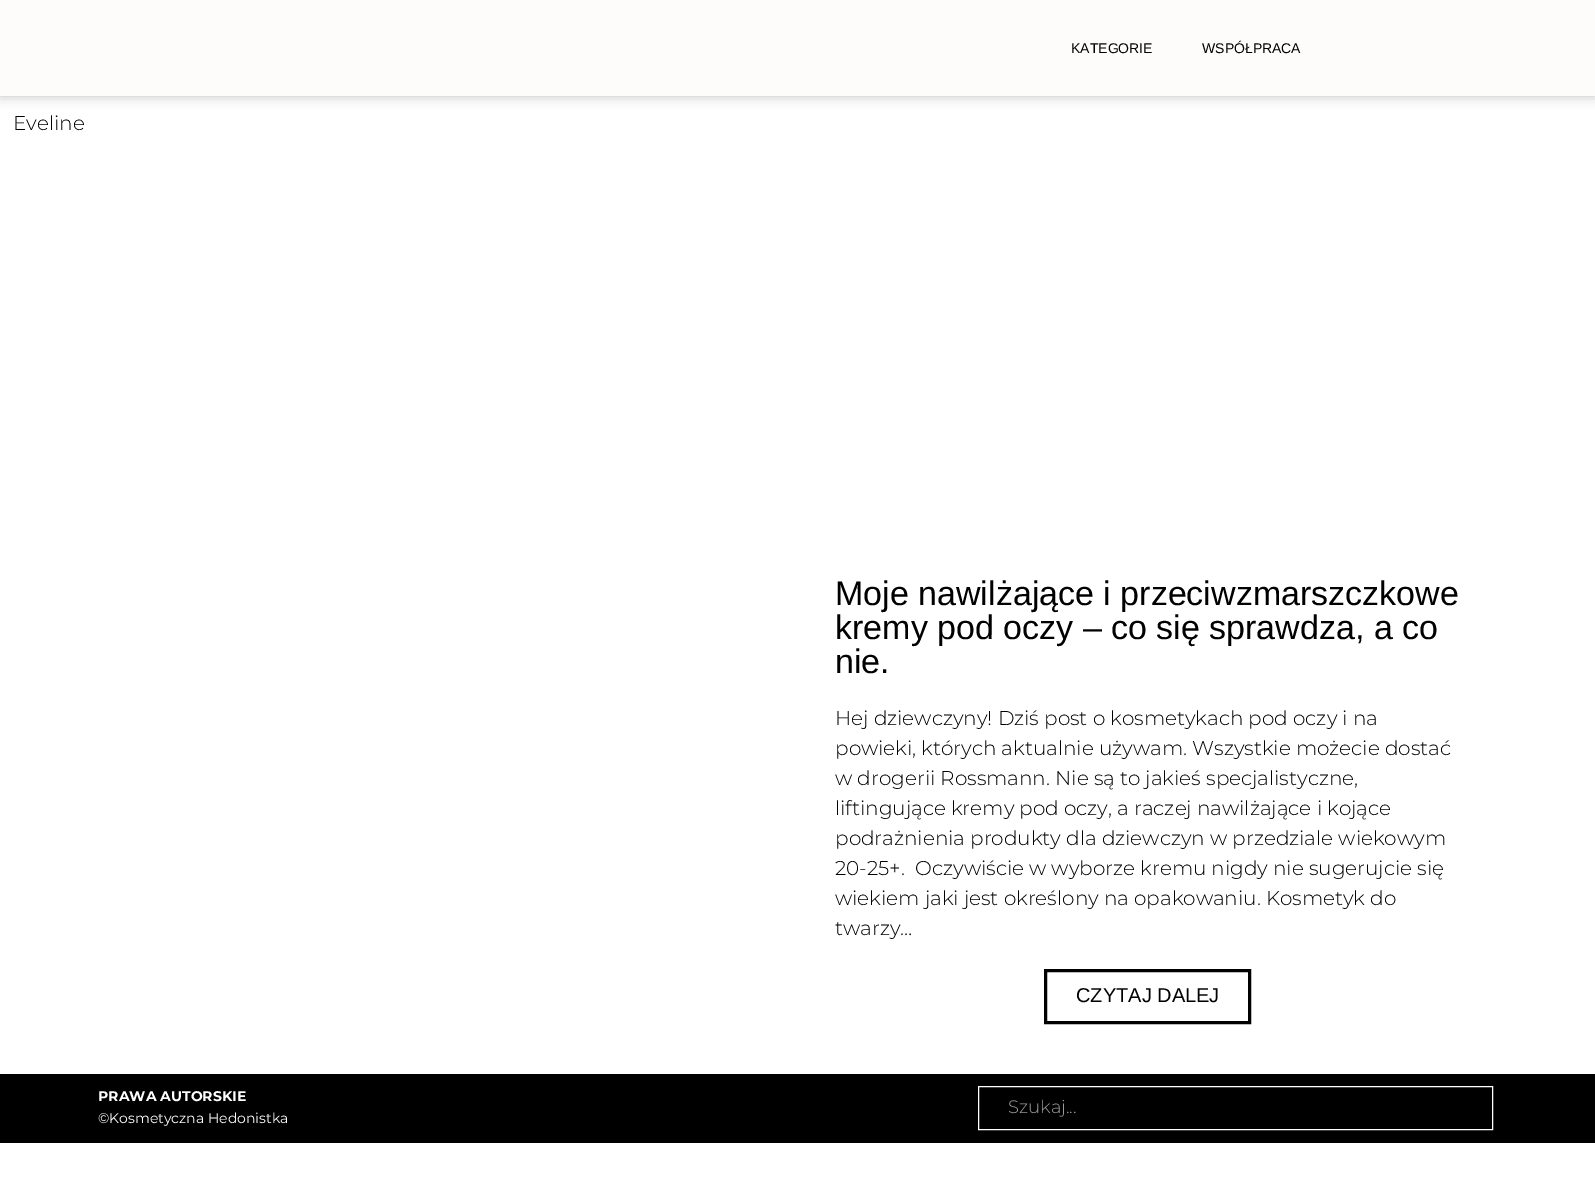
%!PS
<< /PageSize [1595 1191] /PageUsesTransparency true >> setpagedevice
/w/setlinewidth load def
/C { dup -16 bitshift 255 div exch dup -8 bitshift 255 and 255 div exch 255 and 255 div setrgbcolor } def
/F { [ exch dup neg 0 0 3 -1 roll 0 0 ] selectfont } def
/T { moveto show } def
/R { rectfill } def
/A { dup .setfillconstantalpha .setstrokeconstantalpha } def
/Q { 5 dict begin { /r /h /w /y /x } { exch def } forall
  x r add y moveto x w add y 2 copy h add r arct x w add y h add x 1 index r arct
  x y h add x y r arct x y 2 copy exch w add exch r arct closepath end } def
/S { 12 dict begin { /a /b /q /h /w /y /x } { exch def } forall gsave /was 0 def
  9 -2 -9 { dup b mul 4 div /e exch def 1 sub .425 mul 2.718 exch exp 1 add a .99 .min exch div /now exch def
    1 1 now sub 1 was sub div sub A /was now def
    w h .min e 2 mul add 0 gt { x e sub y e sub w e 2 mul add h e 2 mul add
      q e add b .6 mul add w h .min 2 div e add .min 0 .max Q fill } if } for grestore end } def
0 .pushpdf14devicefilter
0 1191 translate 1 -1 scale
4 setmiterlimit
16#FFFFFF C
0 0 1595 1191 R
16#000000 C
0 0 1595 96 0 6 .25 S
16#FEFBFB C
0 0 1595 96 R
/LiberationSans-Regular 14 F
16#000000 C
(KATEGORIE) 1071 53 T
(WSPÓŁPRACA) 1202 53 T
/Montserrat-Light 20 F
(Eveline) 13 130 T
/LiberationSans-Regular 34 F
(Moje nawilżające i przeciwzmarszczkowe) 835 605 T
(kremy pod oczy – co się sprawdza, a co) 835 639 T
(nie.) 835 673 T
/Montserrat-Light 20 F
(Hej dziewczyny! Dziś post o kosmetykach pod oczy i na) 835 725 T
(powieki, których aktualnie używam. Wszystkie możecie dostać) 835 755 T
(w drogerii Rossmann. Nie są to jakieś specjalistyczne,) 835 785 T
(liftingujące kremy pod oczy, a raczej nawilżające i kojące) 835 815 T
(podrażnienia produkty dla dziewczyn w przedziale wiekowym) 835 845 T
(20-25+.  Oczywiście w wyborze kremu nigdy nie sugerujcie się) 835 875 T
(wiekiem jaki jest określony na opakowaniu. Kosmetyk do) 835 905 T
(twarzy…) 835 935 T
3 w
1045.5 970.5 204 52 rectstroke
/LiberationSans-Regular 20 F
(CZYTAJ DALEJ) 1076 1002 T
0 1074 1595 69 R
/Montserrat-Bold 14 F
16#FFFFFF C
(PRAWA AUTORSKIE) 98 1101 T
/Montserrat-Regular 14 F
(©Kosmetyczna Hedonistka) 98 1123 T
1 w
978.5 1086.5 514 43 rectstroke
/Montserrat-Light 18 F
16#999999 C
(Szukaj...) 1008 1113 T
.poppdf14devicefilter showpage
